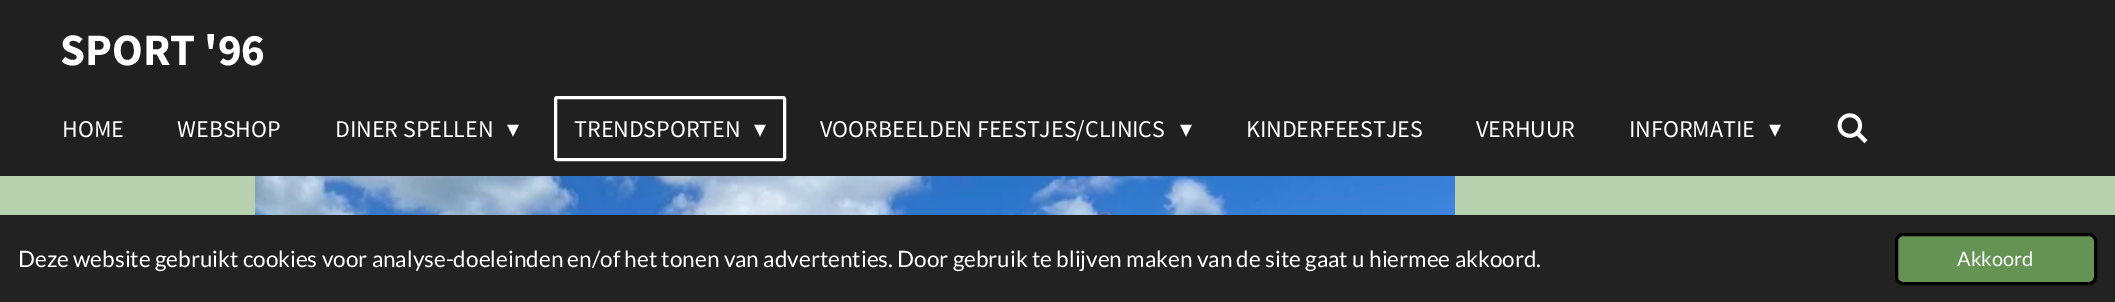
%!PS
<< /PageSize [2115 302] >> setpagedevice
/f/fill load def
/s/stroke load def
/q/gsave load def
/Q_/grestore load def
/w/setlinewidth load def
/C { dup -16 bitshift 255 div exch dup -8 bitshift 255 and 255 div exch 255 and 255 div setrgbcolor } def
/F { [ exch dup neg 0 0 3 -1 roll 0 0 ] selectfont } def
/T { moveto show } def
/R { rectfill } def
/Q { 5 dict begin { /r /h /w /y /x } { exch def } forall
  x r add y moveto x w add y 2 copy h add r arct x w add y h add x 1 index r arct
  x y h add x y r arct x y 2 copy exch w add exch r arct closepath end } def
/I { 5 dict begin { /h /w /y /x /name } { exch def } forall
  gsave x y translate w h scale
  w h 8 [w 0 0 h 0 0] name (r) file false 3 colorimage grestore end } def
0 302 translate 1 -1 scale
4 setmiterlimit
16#B8D1AE C
0 0 2115 302 R
16#202020 C
0 0 2115 176 R
/SourceSansPro-Bold 45 F
16#FFFFFF C
(SPORT '96) 60 65 T
/SourceSansPro-Regular 24 F
(HOME) 62 137 T
(WEBSHOP) 177 137 T
(DINER SPELLEN) 335 137 T
/DejaVuSans-Regular 24 F
(▾) 507 137 T
3 w
555.5 97.5 229 62 1.5 Q s
/SourceSansPro-Regular 24 F
(TRENDSPORTEN) 574 137 T
/DejaVuSans-Regular 24 F
(▾) 754 137 T
/SourceSansPro-Regular 24 F
(VOORBEELDEN FEESTJES/CLINICS) 820 137 T
/DejaVuSans-Regular 24 F
(▾) 1180 137 T
/SourceSansPro-Regular 24 F
(KINDERFEESTJES) 1246 137 T
(VERHUUR) 1476 137 T
(INFORMATIE) 1629 137 T
/DejaVuSans-Regular 24 F
(▾) 1769 137 T
(1.rgb) 1837 113 31 31 I
(2.rgb) 255 176 1200 39 I
16#222222 C
0 215 2115 87 R
/Lato-Regular 22.5 F
16#FFFFFF C
(Deze website gebruikt cookies voor analyse-doeleinden en/of het tonen van advertenties. Door gebruik te blijven maken van de site gaat u hiermee akkoord.) 18 267 T
16#659353 C
1896.5 234.5 199 49 6.5 Q q f Q_
16#000000 C
s
/Lato-Regular 20 F
16#FFFFFF C
(Akkoord) 1957 266 T
showpage
